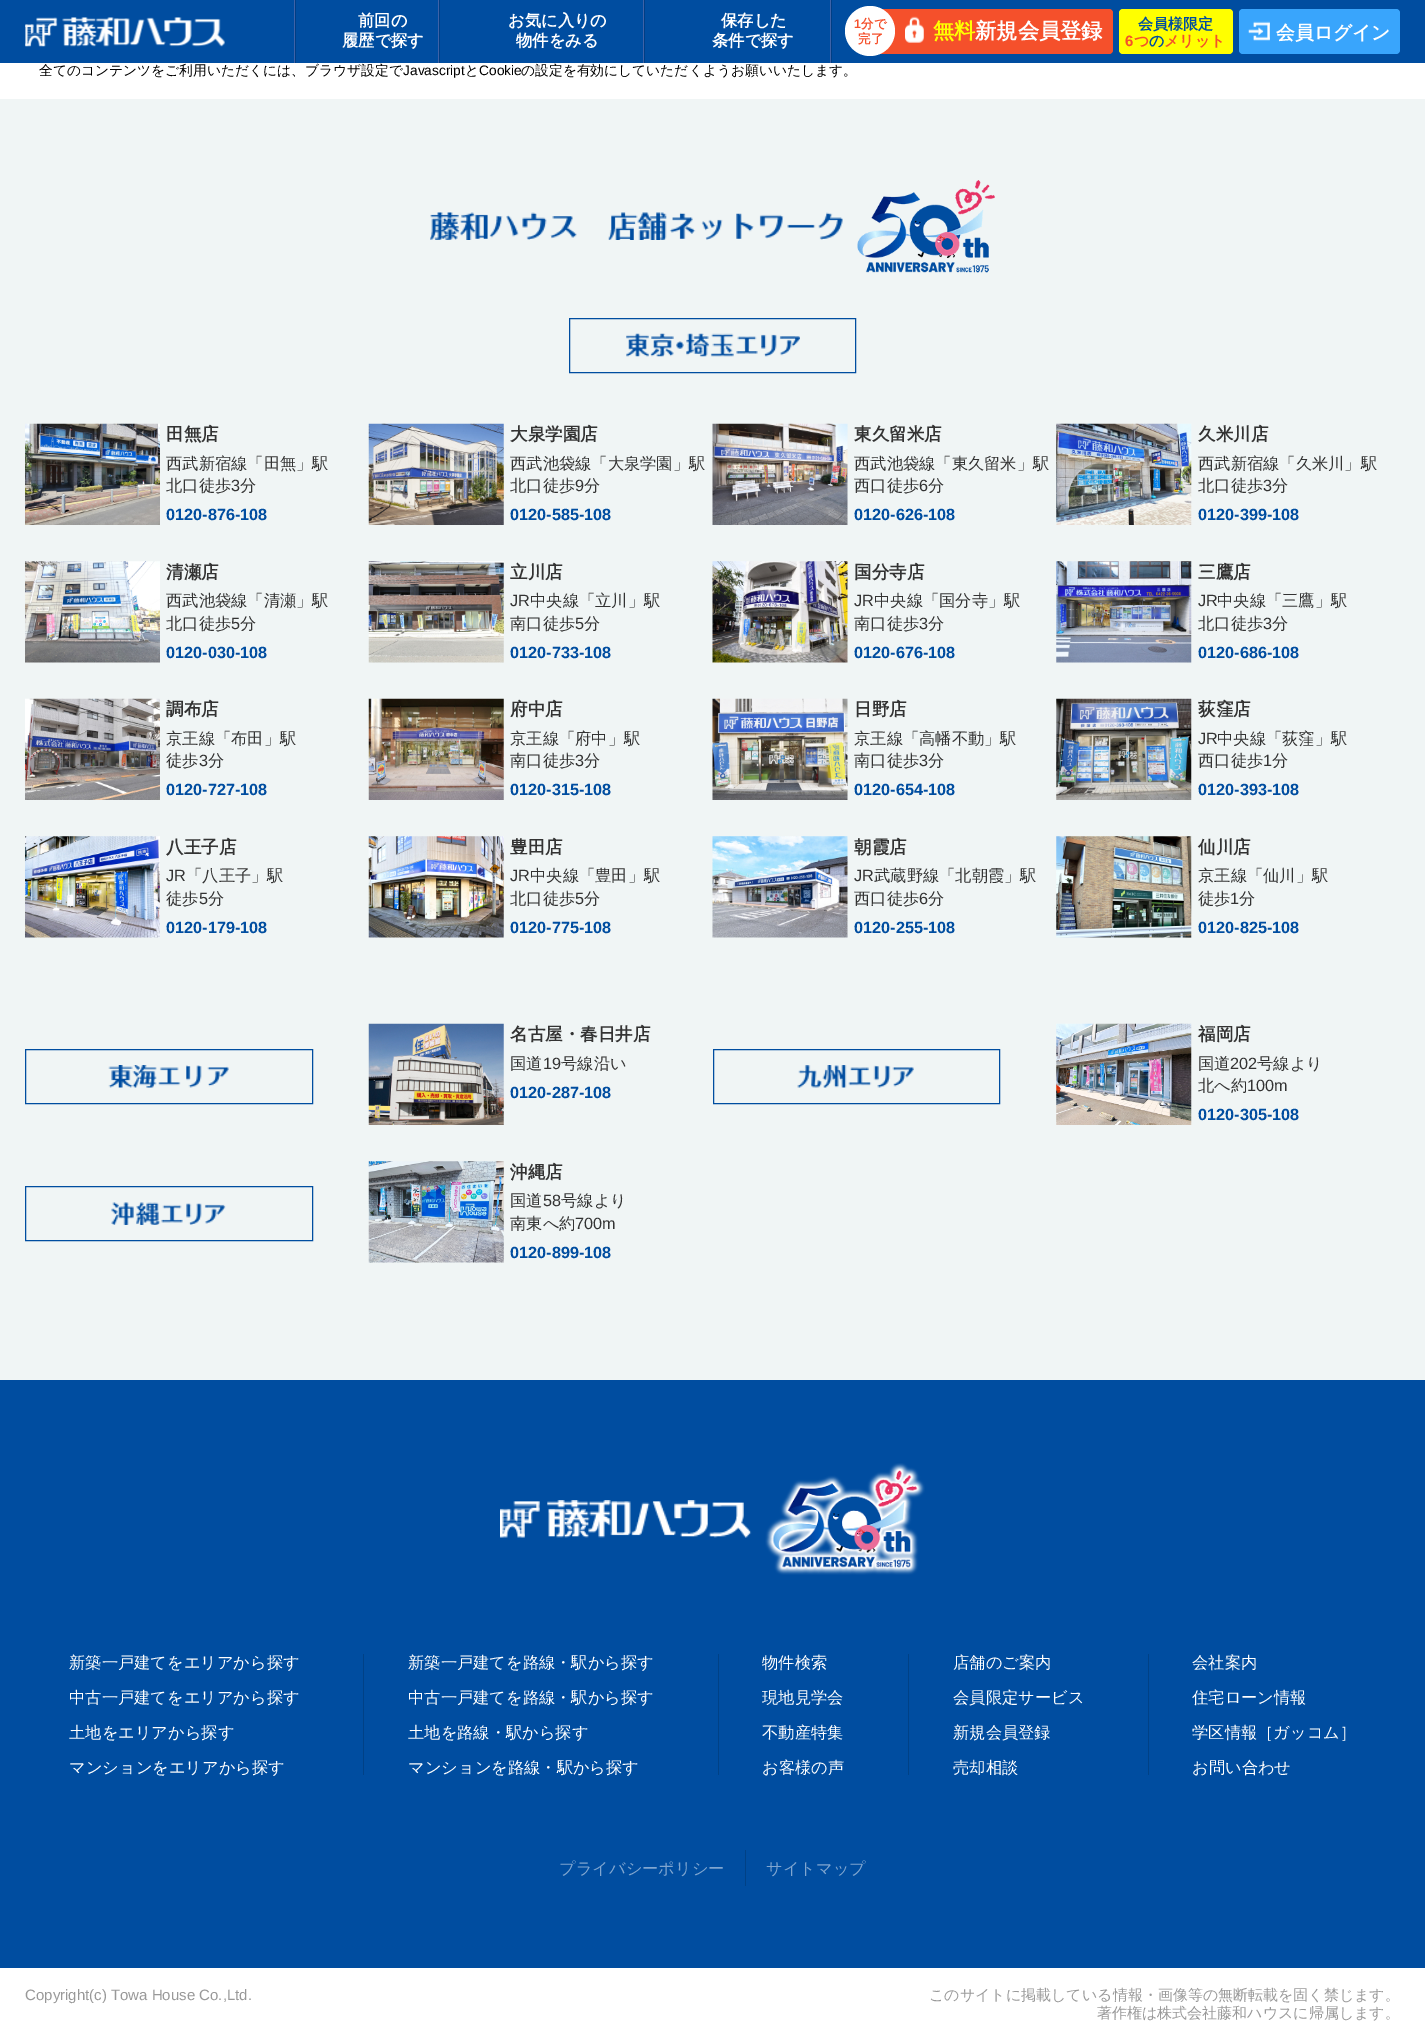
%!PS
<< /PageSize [1425 2040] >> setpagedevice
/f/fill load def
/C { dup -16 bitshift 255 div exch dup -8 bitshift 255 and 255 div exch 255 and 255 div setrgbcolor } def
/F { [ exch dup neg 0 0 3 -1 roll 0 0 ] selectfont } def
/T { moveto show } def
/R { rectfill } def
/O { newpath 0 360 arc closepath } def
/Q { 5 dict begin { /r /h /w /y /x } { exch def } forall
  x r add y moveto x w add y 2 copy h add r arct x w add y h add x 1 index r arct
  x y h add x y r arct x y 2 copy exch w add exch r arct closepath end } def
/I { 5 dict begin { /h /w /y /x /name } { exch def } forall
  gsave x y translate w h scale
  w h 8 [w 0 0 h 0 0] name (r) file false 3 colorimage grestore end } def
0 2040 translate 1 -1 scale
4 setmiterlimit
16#FFFFFF C
0 0 1425 2040 R
16#004DA0 C
0 0 1425 63 R
(1.rgb) 25 17 200 30 I
16#3E63A8 C
294 0 1 63 R
16#003E85 C
295 0 1 63 R
/WenQuanYiZenHei-Bold 16.25 F
16#FFFFFF C
(前回の) 358 26 T
(履歴で探す) 342 46 T
16#3E63A8 C
438 0 1 63 R
16#003E85 C
439 0 1 63 R
16#FFFFFF C
(お気に入りの) 508 26 T
(物件をみる) 516 46 T
16#003E85 C
831 0 1 63 R
16#3E63A8 C
643 0 1 63 R
830 0 1 63 R
16#003E85 C
644 0 1 63 R
16#FFFFFF C
(保存した) 721 26 T
(条件で探す) 712 46 T
16#F5502B C
870 9 243 45 4 Q f
(2.rgb) 905 16 19 27 I
16#FFFFFF C
870 31 25 O f
/LiberationSans-Bold 12.5 F
16#F5502B C
(1) 854 28 T
/WenQuanYiZenHei-Bold 12.5 F
(分で) 861 28 T
(完了) 858 43 T
/WenQuanYiZenHei-Bold 21.25 F
16#FFFF00 C
(無料) 933 38 T
16#FFFFFF C
(新規会員登録) 975 38 T
16#FFFF00 C
1119 9 114 45 4 Q f
/WenQuanYiZenHei-Bold 15 F
16#004DA0 C
(会員様限定) 1138 29 T
/LiberationSans-Bold 15 F
16#F5502B C
(6) 1125 46 T
/WenQuanYiZenHei-Bold 15 F
(つ) 1134 46 T
16#004DA0 C
(の) 1149 46 T
16#F5502B C
(メリット) 1164 46 T
16#39A5FC C
1239 9 161 45 4 Q f
(3.rgb) 1248 21 22 20 I
/WenQuanYiZenHei-Bold 18.75 F
16#FFFFFF C
(会員ログイン) 1276 39 T
/WenQuanYiZenHei-Medium 13.75 F
16#000000 C
(全てのコンテンツをご利用いただくには、ブラウザ設定で) 39 75 T
/LiberationSans-Regular 13.75 F
(Javascript) 403 75 T
/WenQuanYiZenHei-Medium 13.75 F
(と) 465 75 T
/LiberationSans-Regular 13.75 F
(Cookie) 479 75 T
/WenQuanYiZenHei-Medium 13.75 F
(の設定を有効にしていただくようお願いいたします。) 521 75 T
16#F0F5F5 C
0 99 1425 1281 R
(4.rgb) 430 212 413 28 I
(5.rgb) 857 180 138 93 I
16#004DA0 C
569.5 318.5 286 54 rectstroke
(6.rgb) 626 333 174 24 I
/WenQuanYiZenHei-Bold 17.5 F
16#333333 C
(田無店) 166 440 T
(7.rgb) 25 423 135 102 I
/WenQuanYiZenHei-Medium 16.25 F
(西武新宿線「田無」駅) 166 469 T
(北口徒歩) 166 491 T
/LiberationSans-Regular 16.25 F
(3) 231 491 T
/WenQuanYiZenHei-Medium 16.25 F
(分) 240 491 T
/LiberationSans-Bold 16.25 F
16#004DA0 C
(0120-876-108) 166 520 T
/WenQuanYiZenHei-Bold 17.5 F
16#333333 C
(大泉学園店) 510 440 T
(8.rgb) 368 423 136 102 I
/WenQuanYiZenHei-Medium 16.25 F
(西武池袋線「大泉学園」駅) 510 469 T
(北口徒歩) 510 491 T
/LiberationSans-Regular 16.25 F
(9) 575 491 T
/WenQuanYiZenHei-Medium 16.25 F
(分) 584 491 T
/LiberationSans-Bold 16.25 F
16#004DA0 C
(0120-585-108) 510 520 T
/WenQuanYiZenHei-Bold 17.5 F
16#333333 C
(東久留米店) 854 440 T
(9.rgb) 712 423 136 102 I
/WenQuanYiZenHei-Medium 16.25 F
(西武池袋線「東久留米」駅) 854 469 T
(西口徒歩) 854 491 T
/LiberationSans-Regular 16.25 F
(6) 919 491 T
/WenQuanYiZenHei-Medium 16.25 F
(分) 928 491 T
/LiberationSans-Bold 16.25 F
16#004DA0 C
(0120-626-108) 854 520 T
/WenQuanYiZenHei-Bold 17.5 F
16#333333 C
(久米川店) 1198 440 T
(10.rgb) 1056 423 136 102 I
/WenQuanYiZenHei-Medium 16.25 F
(西武新宿線「久米川」駅) 1198 469 T
(北口徒歩) 1198 491 T
/LiberationSans-Regular 16.25 F
(3) 1263 491 T
/WenQuanYiZenHei-Medium 16.25 F
(分) 1272 491 T
/LiberationSans-Bold 16.25 F
16#004DA0 C
(0120-399-108) 1198 520 T
/WenQuanYiZenHei-Bold 17.5 F
16#333333 C
(清瀬店) 166 578 T
(11.rgb) 25 561 135 102 I
/WenQuanYiZenHei-Medium 16.25 F
(西武池袋線「清瀬」駅) 166 606 T
(北口徒歩) 166 629 T
/LiberationSans-Regular 16.25 F
(5) 231 629 T
/WenQuanYiZenHei-Medium 16.25 F
(分) 240 629 T
/LiberationSans-Bold 16.25 F
16#004DA0 C
(0120-030-108) 166 658 T
/WenQuanYiZenHei-Bold 17.5 F
16#333333 C
(立川店) 510 578 T
(12.rgb) 368 561 136 102 I
/LiberationSans-Regular 16.25 F
(JR) 510 606 T
/WenQuanYiZenHei-Medium 16.25 F
(中央線「立川」駅) 530 606 T
(南口徒歩) 510 629 T
/LiberationSans-Regular 16.25 F
(5) 575 629 T
/WenQuanYiZenHei-Medium 16.25 F
(分) 584 629 T
/LiberationSans-Bold 16.25 F
16#004DA0 C
(0120-733-108) 510 658 T
/WenQuanYiZenHei-Bold 17.5 F
16#333333 C
(国分寺店) 854 578 T
(13.rgb) 712 561 136 102 I
/LiberationSans-Regular 16.25 F
(JR) 854 606 T
/WenQuanYiZenHei-Medium 16.25 F
(中央線「国分寺」駅) 874 606 T
(南口徒歩) 854 629 T
/LiberationSans-Regular 16.25 F
(3) 919 629 T
/WenQuanYiZenHei-Medium 16.25 F
(分) 928 629 T
/LiberationSans-Bold 16.25 F
16#004DA0 C
(0120-676-108) 854 658 T
/WenQuanYiZenHei-Bold 17.5 F
16#333333 C
(三鷹店) 1198 578 T
(14.rgb) 1056 561 136 102 I
/LiberationSans-Regular 16.25 F
(JR) 1198 606 T
/WenQuanYiZenHei-Medium 16.25 F
(中央線「三鷹」駅) 1217 606 T
(北口徒歩) 1198 629 T
/LiberationSans-Regular 16.25 F
(3) 1263 629 T
/WenQuanYiZenHei-Medium 16.25 F
(分) 1272 629 T
/LiberationSans-Bold 16.25 F
16#004DA0 C
(0120-686-108) 1198 658 T
/WenQuanYiZenHei-Bold 17.5 F
16#333333 C
(調布店) 166 715 T
(15.rgb) 25 698 135 102 I
/WenQuanYiZenHei-Medium 16.25 F
(京王線「布田」駅) 166 744 T
(徒歩) 166 766 T
/LiberationSans-Regular 16.25 F
(3) 199 766 T
/WenQuanYiZenHei-Medium 16.25 F
(分) 208 766 T
/LiberationSans-Bold 16.25 F
16#004DA0 C
(0120-727-108) 166 795 T
/WenQuanYiZenHei-Bold 17.5 F
16#333333 C
(府中店) 510 715 T
(16.rgb) 368 698 136 102 I
/WenQuanYiZenHei-Medium 16.25 F
(京王線「府中」駅) 510 744 T
(南口徒歩) 510 766 T
/LiberationSans-Regular 16.25 F
(3) 575 766 T
/WenQuanYiZenHei-Medium 16.25 F
(分) 584 766 T
/LiberationSans-Bold 16.25 F
16#004DA0 C
(0120-315-108) 510 795 T
/WenQuanYiZenHei-Bold 17.5 F
16#333333 C
(日野店) 854 715 T
(17.rgb) 712 698 136 102 I
/WenQuanYiZenHei-Medium 16.25 F
(京王線「高幡不動」駅) 854 744 T
(南口徒歩) 854 766 T
/LiberationSans-Regular 16.25 F
(3) 919 766 T
/WenQuanYiZenHei-Medium 16.25 F
(分) 928 766 T
/LiberationSans-Bold 16.25 F
16#004DA0 C
(0120-654-108) 854 795 T
/WenQuanYiZenHei-Bold 17.5 F
16#333333 C
(荻窪店) 1198 715 T
(18.rgb) 1056 698 136 102 I
/LiberationSans-Regular 16.25 F
(JR) 1198 744 T
/WenQuanYiZenHei-Medium 16.25 F
(中央線「荻窪」駅) 1217 744 T
(西口徒歩) 1198 766 T
/LiberationSans-Regular 16.25 F
(1) 1263 766 T
/WenQuanYiZenHei-Medium 16.25 F
(分) 1272 766 T
/LiberationSans-Bold 16.25 F
16#004DA0 C
(0120-393-108) 1198 795 T
/WenQuanYiZenHei-Bold 17.5 F
16#333333 C
(八王子店) 166 853 T
(19.rgb) 25 836 135 102 I
/LiberationSans-Regular 16.25 F
(JR) 166 881 T
/WenQuanYiZenHei-Medium 16.25 F
(「八王子」駅) 186 881 T
(徒歩) 166 904 T
/LiberationSans-Regular 16.25 F
(5) 199 904 T
/WenQuanYiZenHei-Medium 16.25 F
(分) 208 904 T
/LiberationSans-Bold 16.25 F
16#004DA0 C
(0120-179-108) 166 933 T
/WenQuanYiZenHei-Bold 17.5 F
16#333333 C
(豊田店) 510 853 T
(20.rgb) 368 836 136 102 I
/LiberationSans-Regular 16.25 F
(JR) 510 881 T
/WenQuanYiZenHei-Medium 16.25 F
(中央線「豊田」駅) 530 881 T
(北口徒歩) 510 904 T
/LiberationSans-Regular 16.25 F
(5) 575 904 T
/WenQuanYiZenHei-Medium 16.25 F
(分) 584 904 T
/LiberationSans-Bold 16.25 F
16#004DA0 C
(0120-775-108) 510 933 T
/WenQuanYiZenHei-Bold 17.5 F
16#333333 C
(朝霞店) 854 853 T
(21.rgb) 712 836 136 102 I
/LiberationSans-Regular 16.25 F
(JR) 854 881 T
/WenQuanYiZenHei-Medium 16.25 F
(武蔵野線「北朝霞」駅) 874 881 T
(西口徒歩) 854 904 T
/LiberationSans-Regular 16.25 F
(6) 919 904 T
/WenQuanYiZenHei-Medium 16.25 F
(分) 928 904 T
/LiberationSans-Bold 16.25 F
16#004DA0 C
(0120-255-108) 854 933 T
/WenQuanYiZenHei-Bold 17.5 F
16#333333 C
(仙川店) 1198 853 T
(22.rgb) 1056 836 136 102 I
/WenQuanYiZenHei-Medium 16.25 F
(京王線「仙川」駅) 1198 881 T
(徒歩) 1198 904 T
/LiberationSans-Regular 16.25 F
(1) 1230 904 T
/WenQuanYiZenHei-Medium 16.25 F
(分) 1239 904 T
/LiberationSans-Bold 16.25 F
16#004DA0 C
(0120-825-108) 1198 933 T
25.5 1049.5 287 54 rectstroke
(23.rgb) 108 1065 121 23 I
/WenQuanYiZenHei-Bold 17.5 F
16#333333 C
(名古屋・春日井店) 510 1040 T
(24.rgb) 368 1023 136 102 I
/WenQuanYiZenHei-Medium 16.25 F
(国道) 510 1069 T
/LiberationSans-Regular 16.25 F
(19) 543 1069 T
/WenQuanYiZenHei-Medium 16.25 F
(号線沿い) 561 1069 T
/LiberationSans-Bold 16.25 F
16#004DA0 C
(0120-287-108) 510 1098 T
713.5 1049.5 286 54 rectstroke
(25.rgb) 797 1065 117 23 I
/WenQuanYiZenHei-Bold 17.5 F
16#333333 C
(福岡店) 1198 1040 T
(26.rgb) 1056 1023 136 102 I
/WenQuanYiZenHei-Medium 16.25 F
(国道) 1198 1069 T
/LiberationSans-Regular 16.25 F
(202) 1230 1069 T
/WenQuanYiZenHei-Medium 16.25 F
(号線より) 1257 1069 T
(北へ約) 1198 1091 T
/LiberationSans-Regular 16.25 F
(100m) 1247 1091 T
/LiberationSans-Bold 16.25 F
16#004DA0 C
(0120-305-108) 1198 1120 T
25.5 1186.5 287 54 rectstroke
(27.rgb) 111 1202 115 23 I
/WenQuanYiZenHei-Bold 17.5 F
16#333333 C
(沖縄店) 510 1178 T
(28.rgb) 368 1161 136 102 I
/WenQuanYiZenHei-Medium 16.25 F
(国道) 510 1206 T
/LiberationSans-Regular 16.25 F
(58) 543 1206 T
/WenQuanYiZenHei-Medium 16.25 F
(号線より) 561 1206 T
(南東へ約) 510 1229 T
/LiberationSans-Regular 16.25 F
(700m) 575 1229 T
/LiberationSans-Bold 16.25 F
16#004DA0 C
(0120-899-108) 510 1258 T
0 1380 1425 588 R
(29.rgb) 500 1500 252 38 I
(30.rgb) 765 1463 160 112 I
/WenQuanYiZenHei-Medium 16.25 F
16#FFFFFF C
(新築一戸建てをエリアから探す) 69 1668 T
(中古一戸建てをエリアから探す) 69 1703 T
(土地をエリアから探す) 69 1738 T
(マンションをエリアから探す) 69 1773 T
16#004186 C
363 1654 1 121 R
16#FFFFFF C
(新築一戸建てを路線・駅から探す) 408 1668 T
(中古一戸建てを路線・駅から探す) 408 1703 T
(土地を路線・駅から探す) 408 1738 T
(マンションを路線・駅から探す) 408 1773 T
16#004186 C
718 1654 1 121 R
16#FFFFFF C
(物件検索) 762 1668 T
(現地見学会) 762 1703 T
(不動産特集) 762 1738 T
(お客様の声) 762 1773 T
16#004186 C
908 1654 1 121 R
16#FFFFFF C
(店舗のご案内) 953 1668 T
(会員限定サービス) 953 1703 T
(新規会員登録) 953 1738 T
(売却相談) 953 1773 T
16#004186 C
1148 1654 1 121 R
16#FFFFFF C
(会社案内) 1192 1668 T
(住宅ローン情報) 1192 1703 T
(学区情報［ガッコム］) 1192 1738 T
(お問い合わせ) 1192 1773 T
16#004186 C
745 1850 1 36 R
16#80A6D0 C
(プライバシーポリシー) 559 1874 T
(サイトマップ) 766 1874 T
/LiberationSans-Regular 15 F
16#999999 C
(Copyright\(c\) Towa House Co.,Ltd.) 25 2000 T
/WenQuanYiZenHei-Medium 15 F
(このサイトに掲載している情報・画像等の無断転載を固く禁じます。) 929 2000 T
(著作権は株式会社藤和ハウスに帰属します。) 1097 2018 T
showpage
